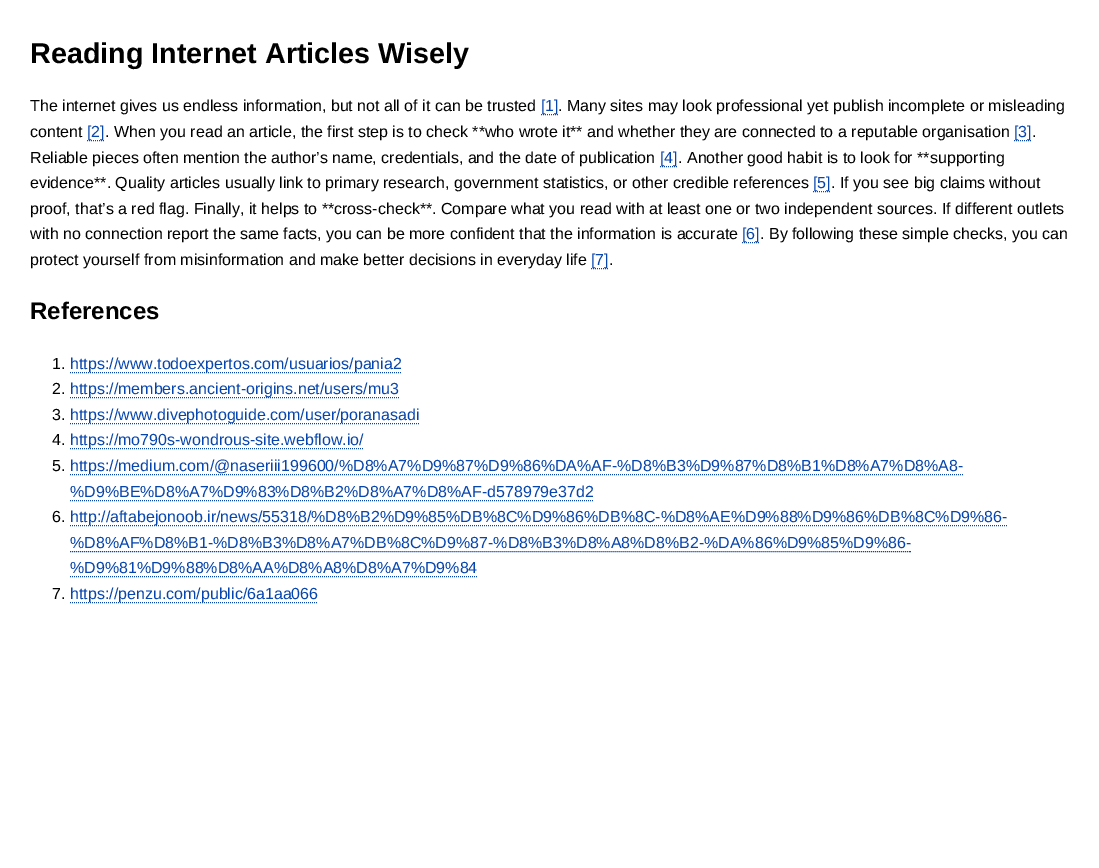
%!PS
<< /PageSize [1099 868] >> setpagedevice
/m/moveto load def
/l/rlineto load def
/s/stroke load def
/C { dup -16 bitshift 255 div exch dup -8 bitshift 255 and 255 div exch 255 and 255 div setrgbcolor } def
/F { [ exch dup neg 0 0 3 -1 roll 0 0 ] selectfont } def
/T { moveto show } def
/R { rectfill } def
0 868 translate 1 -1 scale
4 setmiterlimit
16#FFFFFF C
0 0 1099 868 R
/LiberationSans-Bold 28.75 F
16#000000 C
(Reading Internet Articles Wisely) 30 63 T
/LiberationSans-Regular 16 F
(The internet gives us endless information, but not all of it can be trusted) 30 111 T
16#0645AD C
[1 1] 0 setdash
541 114.5 m 17 0 l s
([1]) 541 111 T
16#000000 C
(. Many sites may look professional yet publish incomplete or misleading) 558 111 T
(content) 30 137 T
16#0645AD C
87 140.5 m 18 0 l s
([2]) 87 137 T
16#000000 C
(. When you read an article, the first step is to check **who wrote it** and whether they are connected to a reputable organisation) 105 137 T
16#0645AD C
1014 140.5 m 18 0 l s
([3]) 1014 137 T
16#000000 C
(.) 1032 137 T
(Reliable pieces often mention the author’s name, credentials, and the date of publication) 30 163 T
16#0645AD C
660 166.5 m 18 0 l s
([4]) 660 163 T
16#000000 C
(. Another good habit is to look for **supporting) 678 163 T
(evidence**. Quality articles usually link to primary research, government statistics, or other credible references) 30 188 T
16#0645AD C
813 191.5 m 18 0 l s
([5]) 813 188 T
16#000000 C
(. If you see big claims without) 831 188 T
(proof, that’s a red flag. Finally, it helps to **cross-check**. Compare what you read with at least one or two independent sources. If different outlets) 30 214 T
(with no connection report the same facts, you can be more confident that the information is accurate) 30 239 T
16#0645AD C
742 242.5 m 18 0 l s
([6]) 742 239 T
16#000000 C
(. By following these simple checks, you can) 760 239 T
(protect yourself from misinformation and make better decisions in everyday life) 30 265 T
16#0645AD C
591 268.5 m 18 0 l s
([7]) 591 265 T
16#000000 C
(.) 609 265 T
/LiberationSans-Bold 24 F
(References) 30 319 T
/LiberationSans-Regular 16 F
(1.) 52 369 T
16#0645AD C
70 372.5 m 332 0 l s
(https://www.todoexpertos.com/usuarios/pania2) 70 369 T
16#000000 C
(2.) 52 394 T
16#0645AD C
70 397.5 m 329 0 l s
(https://members.ancient-origins.net/users/mu3) 70 394 T
16#000000 C
(3.) 52 420 T
16#0645AD C
70 423.5 m 350 0 l s
(https://www.divephotoguide.com/user/poranasadi) 70 420 T
16#000000 C
(4.) 52 445 T
16#0645AD C
70 448.5 m 293 0 l s
(https://mo790s-wondrous-site.webflow.io/) 70 445 T
16#000000 C
(5.) 52 471 T
16#0645AD C
70 474.5 m 893 0 l s
(https://medium.com/@naseriii199600/%D8%A7%D9%87%D9%86%DA%AF-%D8%B3%D9%87%D8%B1%D8%A7%D8%A8-) 70 471 T
(%D9%BE%D8%A7%D9%83%D8%B2%D8%A7%D8%AF-d578979e37d2) 70 497 T
70 500.5 m 524 0 l s
16#000000 C
(6.) 52 522 T
16#0645AD C
70 525.5 m 937 0 l s
(http://aftabejonoob.ir/news/55318/%D8%B2%D9%85%DB%8C%D9%86%DB%8C-%D8%AE%D9%88%D9%86%DB%8C%D9%86-) 70 522 T
(%D8%AF%D8%B1-%D8%B3%D8%A7%DB%8C%D9%87-%D8%B3%D8%A8%D8%B2-%DA%86%D9%85%D9%86-) 70 548 T
70 551.5 m 841 0 l s
(%D9%81%D9%88%D8%AA%D8%A8%D8%A7%D9%84) 70 573 T
70 576.5 m 407 0 l s
16#000000 C
(7.) 52 599 T
16#0645AD C
70 602.5 m 248 0 l s
(https://penzu.com/public/6a1aa066) 70 599 T
showpage
